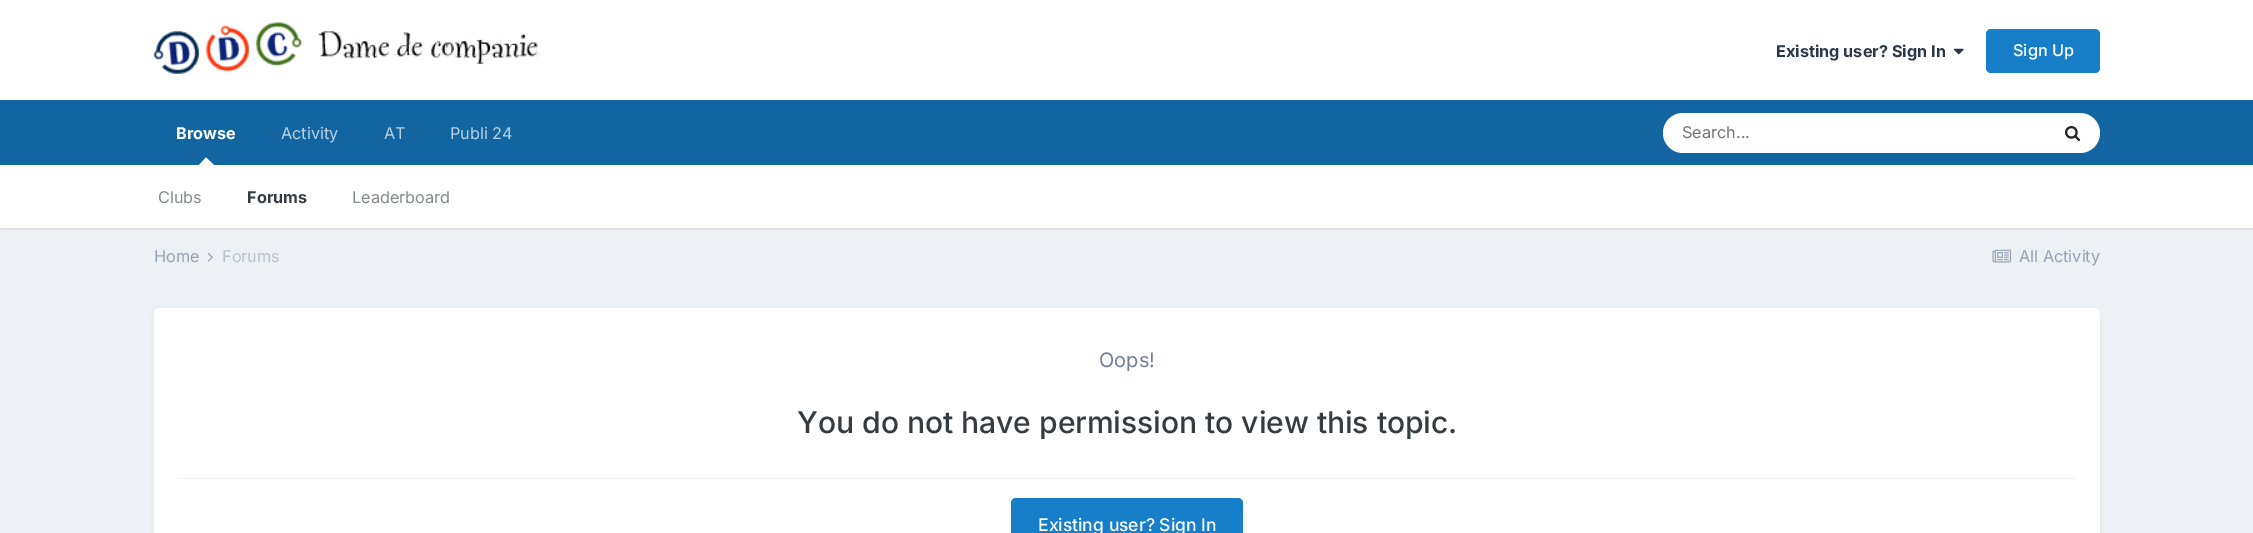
%!PS
<< /PageSize [2253 533] /PageUsesTransparency true >> setpagedevice
/m/moveto load def
/l/rlineto load def
/z/closepath load def
/f/fill load def
/C { dup -16 bitshift 255 div exch dup -8 bitshift 255 and 255 div exch 255 and 255 div setrgbcolor } def
/F { [ exch dup neg 0 0 3 -1 roll 0 0 ] selectfont } def
/T { moveto show } def
/R { rectfill } def
/A { dup .setfillconstantalpha .setstrokeconstantalpha } def
/Q { 5 dict begin { /r /h /w /y /x } { exch def } forall
  x r add y moveto x w add y 2 copy h add r arct x w add y h add x 1 index r arct
  x y h add x y r arct x y 2 copy exch w add exch r arct closepath end } def
/S { 12 dict begin { /a /b /q /h /w /y /x } { exch def } forall gsave /was 0 def
  9 -2 -9 { dup b mul 4 div /e exch def 1 sub .425 mul 2.718 exch exp 1 add a .99 .min exch div /now exch def
    1 1 now sub 1 was sub div sub A /was now def
    w h .min e 2 mul add 0 gt { x e sub y e sub w e 2 mul add h e 2 mul add
      q e add b .6 mul add w h .min 2 div e add .min 0 .max Q fill } if } for grestore end } def
/I { 5 dict begin { /h /w /y /x /name } { exch def } forall
  gsave x y translate w h scale
  w h 8 [w 0 0 h 0 0] name (r) file false 3 colorimage grestore end } def
0 .pushpdf14devicefilter
0 533 translate 1 -1 scale
4 setmiterlimit
16#EDF0F4 C
0 0 2253 533 R
16#FFFFFF C
0 0 2253 100 R
(1.rgb) 153 22 389 52 I
/Inter-Bold 16.25 F
16#2D3748 C
(Existing user? Sign In) 1776 57 T
(2.rgb) 1953 48 11 7 I
16#177EC9 C
1986 29 114 44 5 Q f
/Inter-Medium 16.25 F
16#FFFFFF C
(Sign Up) 2013 56 T
16#1265A1 C
0 100 2253 65 R
/Inter-Regular 16.25 F
16#B8D1E3 C
(Activity) 281 139 T
(Publi 24) 450 139 T
/Inter-Bold 16.25 F
16#FFFFFF C
(Browse) 176 139 T
16#000000 C
0 166 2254 63 0 1 .1 S
16#FFFFFF C
214 165 m -15 0 l 7 -7.5 l z f
0 165 2253 63 R
/Inter-Regular 16.25 F
16#868A8D C
(Clubs) 158 203 T
/Inter-Bold 16.25 F
16#353C41 C
(Forums) 247 203 T
/Inter-Regular 16.25 F
16#868A8D C
(Leaderboard) 352 203 T
16#B8D1E3 C
(AT) 384 139 T
16#FFFFFF C
1663 113 437 40 20 Q f
16#757575 C
(Search...) 1682 138 T
(3.rgb) 2065 126 16 15 I
16#96A2B2 C
(Home) 154 262 T
(4.rgb) 207 252 6 10 I
16#B9C1CD C
(Forums) 222 262 T
(5.rgb) 1992 249 20 14 I
16#96A2B2 C
(All Activity) 2019 262 T
16#2D3748 C
155 311 1944 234 4 2.5 .1 S
16#FFFFFF C
154 308 1946 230 5 Q f
/Inter-Regular 20 F
16#718096 C
(Oops!) 1099 367 T
/Inter-Medium 30 F
16#353C41 C
(You do not have permission to view this topic.) 797 433 T
16#EFEFF0 C
179 478 1896 1 R
16#177EC9 C
1011 498 232 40 5 Q f
/Inter-Medium 17.5 F
16#FFFFFF C
(Existing user? Sign In) 1038 531 T
.poppdf14devicefilter showpage
